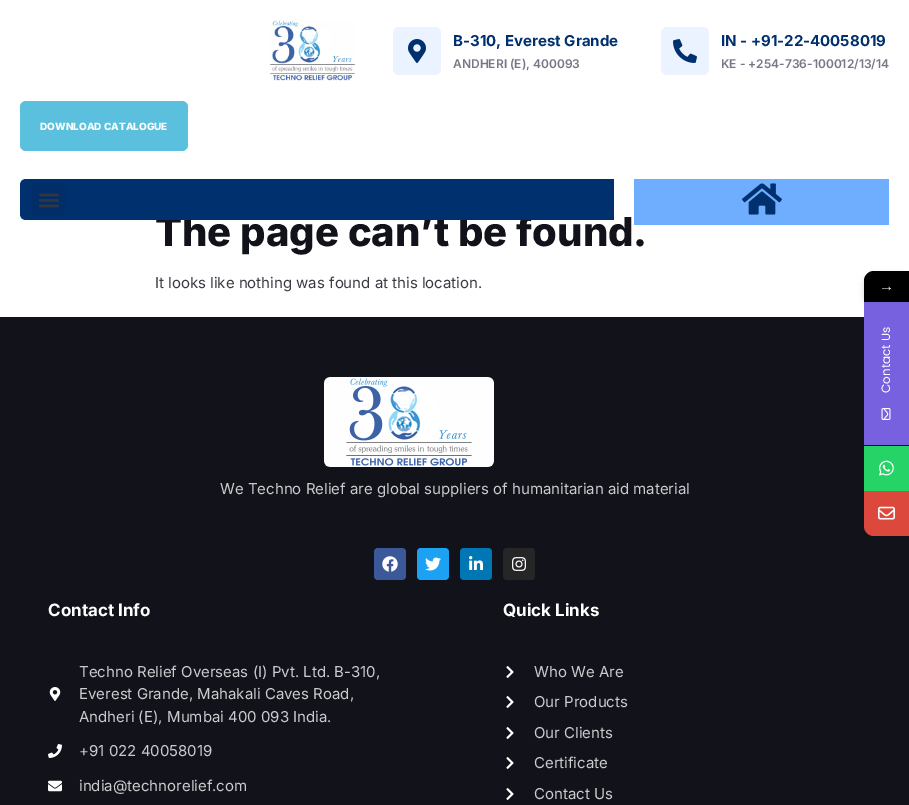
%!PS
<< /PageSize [909 805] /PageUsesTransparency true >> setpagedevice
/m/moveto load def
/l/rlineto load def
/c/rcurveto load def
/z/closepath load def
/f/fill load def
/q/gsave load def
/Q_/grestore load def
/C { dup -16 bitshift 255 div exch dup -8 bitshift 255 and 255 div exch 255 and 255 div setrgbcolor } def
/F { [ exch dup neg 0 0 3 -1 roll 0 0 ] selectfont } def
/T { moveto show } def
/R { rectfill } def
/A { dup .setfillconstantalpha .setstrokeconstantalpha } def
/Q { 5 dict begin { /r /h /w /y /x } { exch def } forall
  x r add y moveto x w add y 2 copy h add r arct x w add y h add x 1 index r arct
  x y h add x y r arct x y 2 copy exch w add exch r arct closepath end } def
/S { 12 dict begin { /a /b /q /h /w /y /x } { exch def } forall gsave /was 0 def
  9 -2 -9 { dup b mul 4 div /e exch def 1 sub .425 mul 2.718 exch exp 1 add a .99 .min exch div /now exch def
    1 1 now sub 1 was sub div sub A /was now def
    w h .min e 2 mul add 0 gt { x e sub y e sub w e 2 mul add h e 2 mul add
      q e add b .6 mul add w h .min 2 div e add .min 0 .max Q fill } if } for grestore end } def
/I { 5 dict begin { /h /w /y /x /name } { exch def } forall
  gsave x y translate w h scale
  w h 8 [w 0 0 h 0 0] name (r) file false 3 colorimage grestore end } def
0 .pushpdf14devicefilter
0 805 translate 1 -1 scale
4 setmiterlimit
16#FFFFFF C
0 0 909 805 R
(1.rgb) 270 20 85 61 I
16#EAF3FF C
393 27 48 48 6 Q f
(2.rgb) 408 39 18 24 I
/Inter-Bold 15 F
16#01306E C
(B-310, Everest Grande) 453 46 T
/Inter-SemiBold 12 F
16#777787 C
(ANDHERI \(E\), 400093) 453 68 T
16#EAF3FF C
661 27 48 48 6 Q f
(3.rgb) 673 39 24 24 I
/Inter-Bold 15 F
16#01306E C
(IN - +91-22-40058019) 721 46 T
/Inter-SemiBold 12 F
16#777787 C
(KE - +254-736-100012/13/14) 721 68 T
16#5BC0DE C
20 101 168 50 6 Q f
/Inter-ExtraBold 10 F
16#FFFFFF C
(DOWNLOAD CATALOGUE) 40 130 T
/Inter-ExtraBold 40 F
16#11121A C
(The page can’t be found.) 155 246 T
16#01306E C
26 179 m 588 0 l 0 41 l -588 0 l -3.5 0 -6 -2.5 -6 -6 c 0 -29 l 0 -3.5 2.5 -6 6 -6 c z f
16#012E69 C
32 183 33 33 3 Q f
(4.rgb) 39 193 20 15 I
16#6FADFF C
634 179 255 46 R
(5.rgb) 742 183 40 32 I
/Inter-Regular 15 F
16#3A3A42 C
(It looks like nothing was found at this location.) 155 288 T
16#000000 C
864 274 45 32 10 3 .16 S
874 271 m 35 0 l 0 32 l -45 0 l 0 -22 l 0 -5.5 4.5 -10 10 -10 c z f
/LiberationSerif-Regular 15 F
16#FFFFFF C
(→) 879 291 T
16#11121A C
0 317 909 488 R
16#7761DF C
864 302 45 143 R
/Poppins-Regular 12 F
16#FFFFFF C
q 890 393 translate -90 rotate 0 0 m (Contact Us) show Q_
(6.rgb) 881 408 10 12 I
16#26D367 C
864 446 45 45 R
(7.rgb) 879 460 15 16 I
16#DC483C C
864 491 m 45 0 l 0 45 l -35 0 l -5.5 0 -10 -4.5 -10 -10 c z f
(8.rgb) 878 506 17 14 I
(9.rgb) 324 377 170 90 I
/Inter-Regular 15 F
16#CBCBCD C
(We Techno Relief are global suppliers of humanitarian aid material) 220 494 T
16#3B5998 C
374 548 32 32 4 Q f
(10.rgb) 382 556 16 16 I
16#1DA1F2 C
417 548 32 32 4 Q f
(11.rgb) 425 557 16 14 I
16#0077B5 C
460 548 32 32 4 Q f
(12.rgb) 469 556 14 14 I
16#262626 C
503 548 32 32 4 Q f
(13.rgb) 512 557 14 14 I
/Inter-Bold 17 F
16#FFFFFF C
(Contact Info) 48 616 T
(14.rgb) 49 687 12 14 I
/Inter-Regular 15 F
16#CBCBCD C
(Techno Relief Overseas \(I\) Pvt. Ltd. B-310,) 79 677 T
(Everest Grande, Mahakali Caves Road,) 79 699 T
(Andheri \(E\), Mumbai 400 093 India.) 79 722 T
(15.rgb) 48 744 14 14 I
(+91 022 40058019) 79 756 T
(16.rgb) 48 780 14 12 I
(india@technorelief.com) 79 791 T
/Inter-Bold 17 F
16#FFFFFF C
(Quick Links) 503 616 T
(17.rgb) 506 666 8 12 I
/Inter-Regular 15 F
16#CBCBCD C
(Who We Are) 534 677 T
(17.rgb) 506 696 8 12 I
(Our Products) 534 707 T
(17.rgb) 506 727 8 12 I
(Our Clients) 534 738 T
(17.rgb) 506 757 8 12 I
(Certificate) 534 768 T
(17.rgb) 506 788 8 12 I
(Contact Us) 534 799 T
.poppdf14devicefilter showpage
